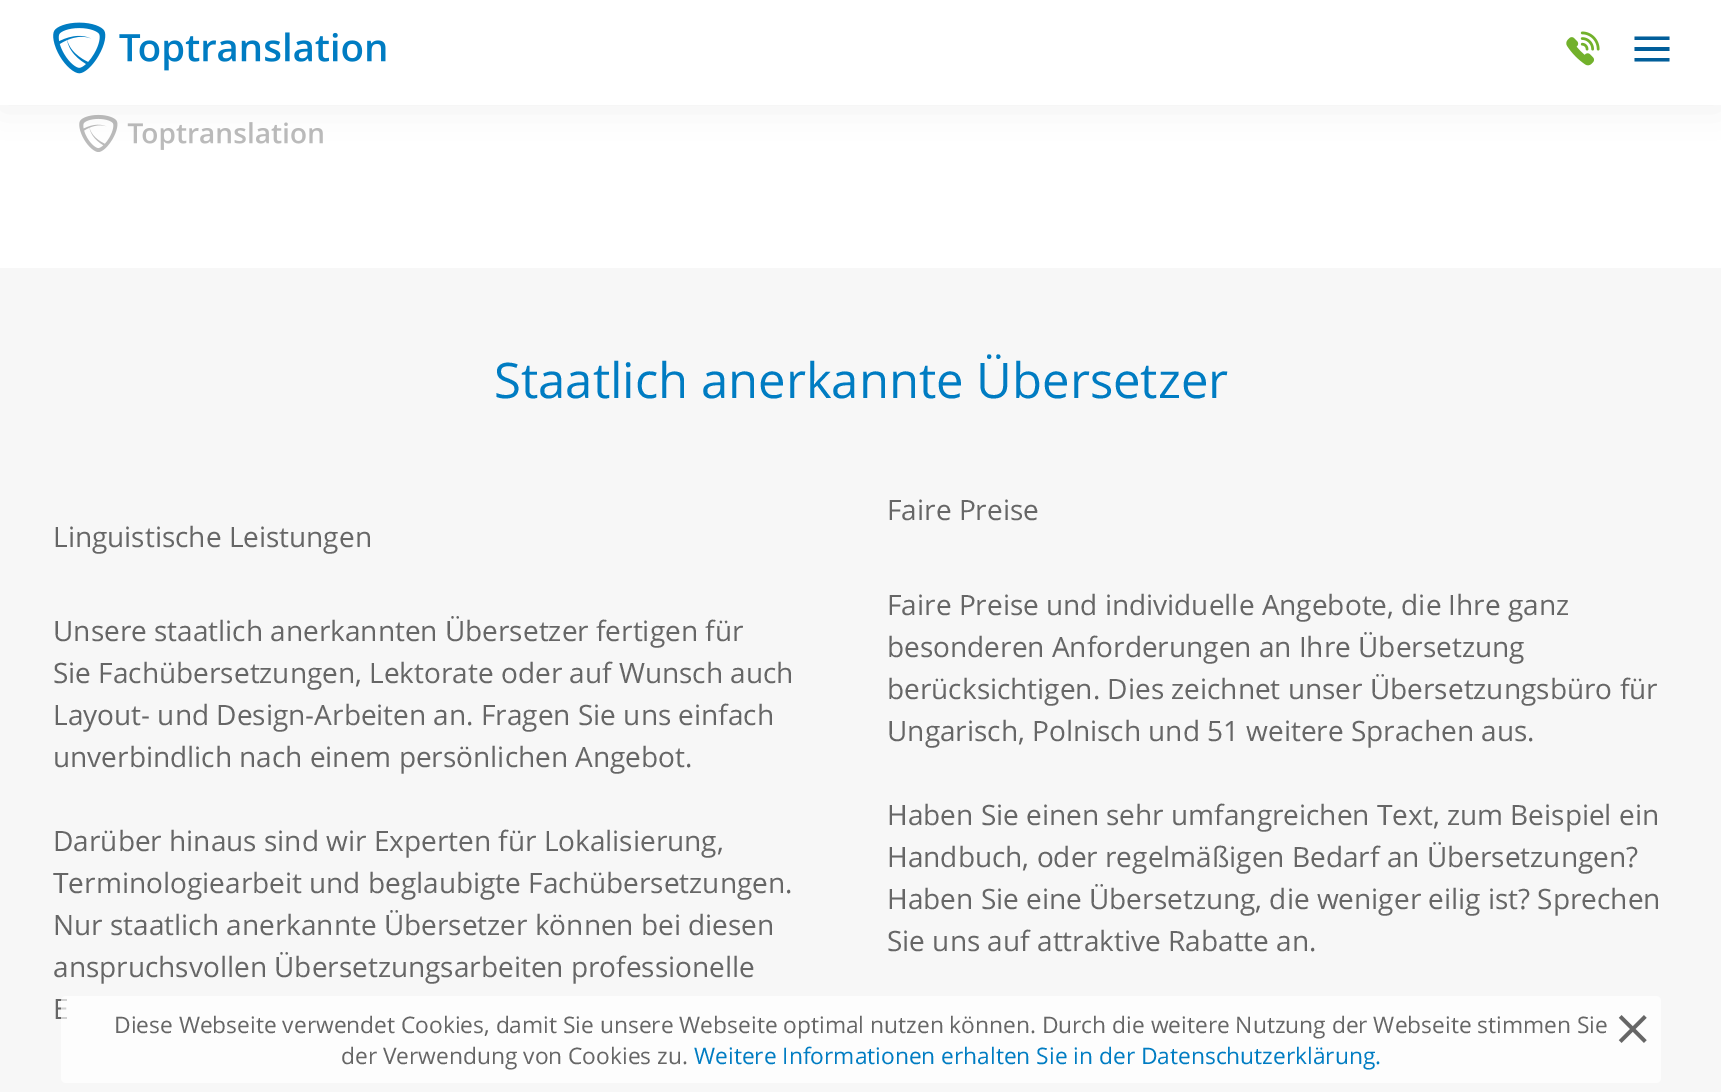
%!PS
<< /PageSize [1721 1092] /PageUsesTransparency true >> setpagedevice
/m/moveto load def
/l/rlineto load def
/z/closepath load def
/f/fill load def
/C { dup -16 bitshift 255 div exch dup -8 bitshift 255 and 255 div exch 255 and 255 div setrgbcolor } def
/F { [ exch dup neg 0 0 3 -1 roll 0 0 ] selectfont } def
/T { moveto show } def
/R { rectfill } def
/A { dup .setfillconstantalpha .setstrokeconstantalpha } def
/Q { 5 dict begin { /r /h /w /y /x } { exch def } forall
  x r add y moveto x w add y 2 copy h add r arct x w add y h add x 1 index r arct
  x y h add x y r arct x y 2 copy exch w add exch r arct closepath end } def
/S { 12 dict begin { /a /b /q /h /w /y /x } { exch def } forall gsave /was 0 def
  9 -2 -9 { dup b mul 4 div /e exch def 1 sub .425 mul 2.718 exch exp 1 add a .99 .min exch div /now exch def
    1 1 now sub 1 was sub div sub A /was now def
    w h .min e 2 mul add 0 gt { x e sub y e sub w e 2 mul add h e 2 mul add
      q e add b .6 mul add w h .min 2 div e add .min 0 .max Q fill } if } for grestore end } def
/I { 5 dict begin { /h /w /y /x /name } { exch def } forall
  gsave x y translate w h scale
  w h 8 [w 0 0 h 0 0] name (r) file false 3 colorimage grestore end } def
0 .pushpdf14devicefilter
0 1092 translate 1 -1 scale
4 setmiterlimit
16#FFFFFF C
0 0 1721 1092 R
(3.rgb) 79 114 244 38 I
16#000000 C
0 5 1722 105 0 17.5 .05 S
16#FFFFFF C
0 0 1721 105 R
(1.rgb) 53 22 333 52 I
(2.rgb) 1566 31 34 35 I
16#015E9A C
1634.5 61.5 m 35 0 l 0 -3.5 l -35 0 l z 1634.5 51 m 35 0 l 0 -4 l -35 0 l z 1634.5 36.5 m 0 3.5 l 35 0 l 0 -3.5 l z f
16#F7F7F7 C
0 268 1721 824 R
/OpenSans-Regular 49 F
16#007CC2 C
(Staatlich anerkannte Übersetzer) 494 398 T
/OpenSans-Regular 28 F
16#666666 C
(Linguistische Leistungen) 53 547 T
(Unsere staatlich anerkannten Übersetzer fertigen für) 53 641 T
(Sie Fachübersetzungen, Lektorate oder auf Wunsch auch) 53 683 T
(Layout- und Design-Arbeiten an. Fragen Sie uns einfach) 53 725 T
(unverbindlich nach einem persönlichen Angebot.) 53 767 T
(Darüber hinaus sind wir Experten für Lokalisierung,) 53 851 T
(Terminologiearbeit und beglaubigte Fachübersetzungen.) 53 893 T
(Nur staatlich anerkannte Übersetzer können bei diesen) 53 935 T
(anspruchsvollen Übersetzungsarbeiten professionelle) 53 977 T
(E) 53 1019 T
(Faire Preise) 887 520 T
(Faire Preise und individuelle Angebote, die Ihre ganz) 887 615 T
(besonderen Anforderungen an Ihre Übersetzung) 887 657 T
(berücksichtigen. Dies zeichnet unser Übersetzungsbüro für) 887 699 T
(Ungarisch, Polnisch und 51 weitere Sprachen aus.) 887 741 T
(Haben Sie einen sehr umfangreichen Text, zum Beispiel ein) 887 825 T
(Handbuch, oder regelmäßigen Bedarf an Übersetzungen?) 887 867 T
(Haben Sie eine Übersetzung, die weniger eilig ist? Sprechen) 887 909 T
(Sie uns auf attraktive Rabatte an.) 887 951 T
0.7 A
16#FFFFFF C
61 996 1600 87 5 Q f
/OpenSans-Regular 22.75 F
1 A
16#666666 C
(Diese Webseite verwendet Cookies, damit Sie unsere Webseite optimal nutzen können. Durch die weitere Nutzung der Webseite stimmen Sie) 114 1033 T
(der Verwendung von Cookies zu.) 341 1064 T
16#007CC2 C
(Weitere Informationen erhalten Sie in der Datenschutzerklärung.) 694 1064 T
(4.rgb) 1618 1015 29 28 I
.poppdf14devicefilter showpage
